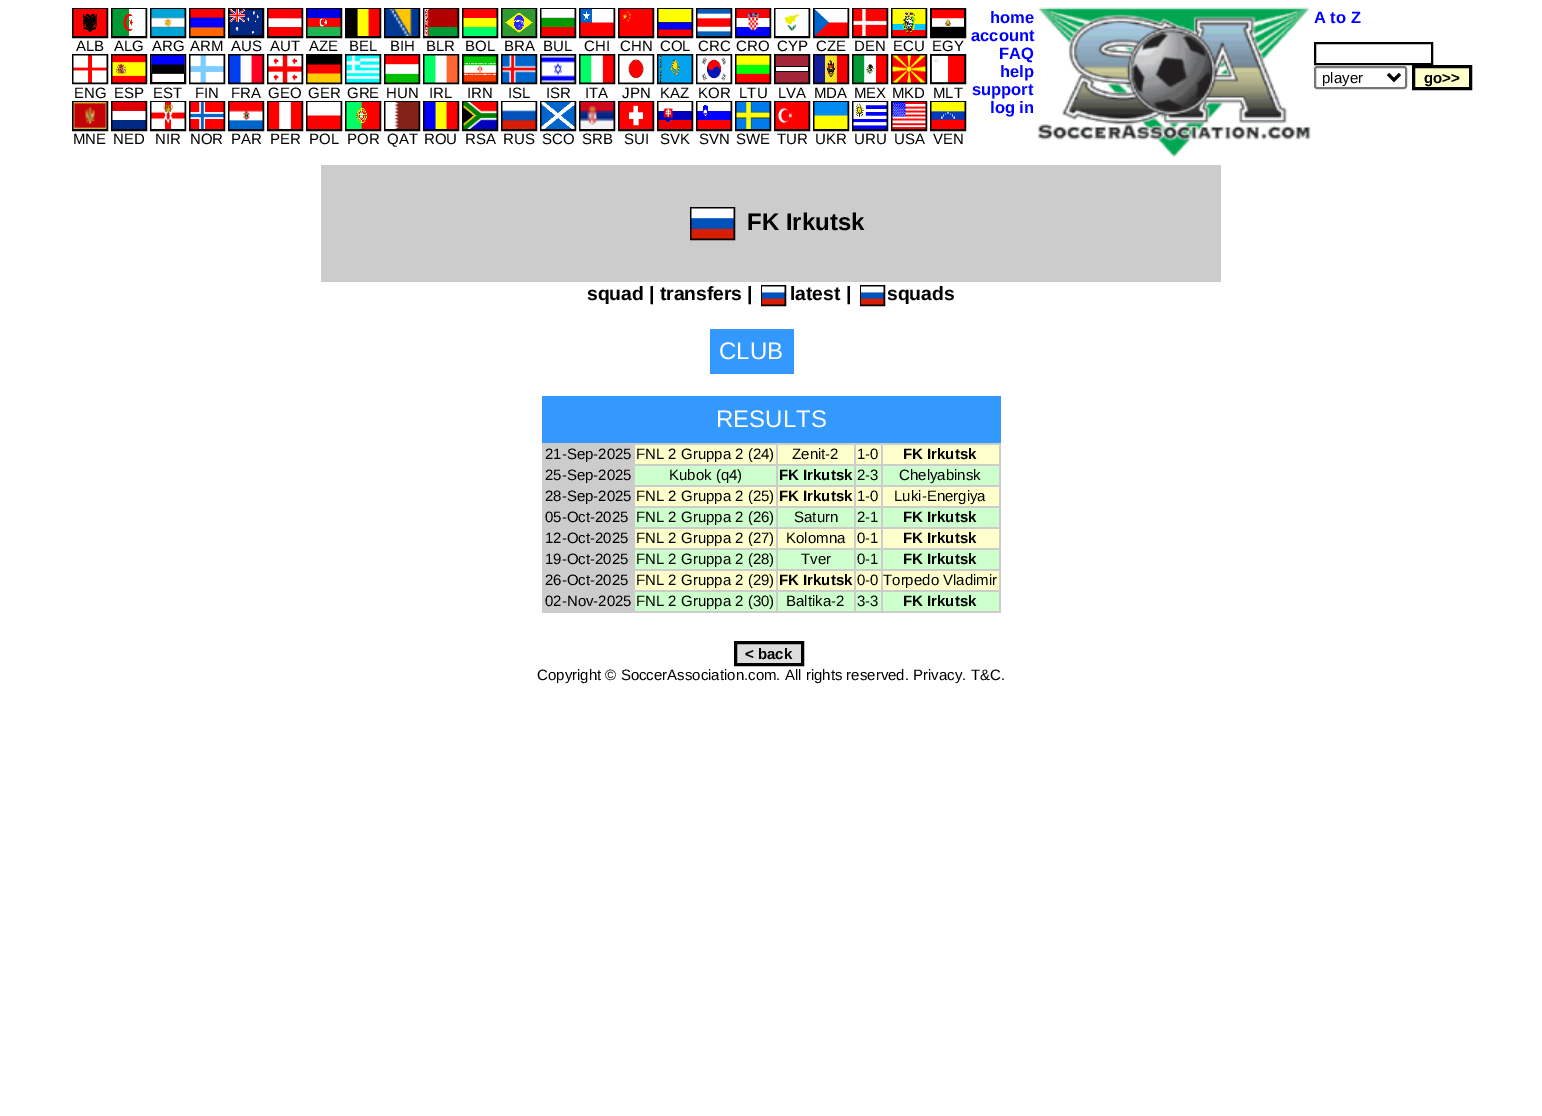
%!PS
<< /PageSize [1542 1116] >> setpagedevice
/m/moveto load def
/l/rlineto load def
/z/closepath load def
/f/fill load def
/s/stroke load def
/q/gsave load def
/Q_/grestore load def
/w/setlinewidth load def
/C { dup -16 bitshift 255 div exch dup -8 bitshift 255 and 255 div exch 255 and 255 div setrgbcolor } def
/F { [ exch dup neg 0 0 3 -1 roll 0 0 ] selectfont } def
/T { moveto show } def
/R { rectfill } def
/Q { 5 dict begin { /r /h /w /y /x } { exch def } forall
  x r add y moveto x w add y 2 copy h add r arct x w add y h add x 1 index r arct
  x y h add x y r arct x y 2 copy exch w add exch r arct closepath end } def
/I { 5 dict begin { /h /w /y /x /name } { exch def } forall
  gsave x y translate w h scale
  w h 8 [w 0 0 h 0 0] name (r) file false 3 colorimage grestore end } def
0 1116 translate 1 -1 scale
4 setmiterlimit
16#FFFFFF C
0 0 1542 1116 R
16#000000 C
2 w
73 9 34 28 rectstroke
(1.rgb) 73 9 34 27 I
/LiberationSans-Regular 15 F
(ALB) 76 51 T
112 9 34 28 rectstroke
(2.rgb) 112 9 34 27 I
(ALG) 114 51 T
151 9 34 28 rectstroke
(3.rgb) 151 9 34 27 I
(ARG) 152 51 T
190 9 34 28 rectstroke
(4.rgb) 190 9 34 27 I
(ARM) 190 51 T
229 9 34 28 rectstroke
(5.rgb) 229 9 33 27 I
(AUS) 231 51 T
268 9 34 28 rectstroke
(6.rgb) 268 9 34 27 I
(AUT) 270 51 T
307 9 34 28 rectstroke
(7.rgb) 307 9 34 27 I
(AZE) 309 51 T
346 9 34 28 rectstroke
(8.rgb) 347 9 33 27 I
(BEL) 349 51 T
385 9 34 28 rectstroke
(9.rgb) 385 9 34 27 I
(BIH) 390 51 T
424 9 34 28 rectstroke
(10.rgb) 424 9 34 27 I
(BLR) 426 51 T
463 9 34 28 rectstroke
(11.rgb) 463 9 34 27 I
(BOL) 465 51 T
502 9 34 28 rectstroke
(12.rgb) 502 9 34 27 I
(BRA) 504 51 T
541 9 34 28 rectstroke
(13.rgb) 541 9 34 27 I
(BUL) 543 51 T
580 9 34 28 rectstroke
(14.rgb) 580 9 34 27 I
(CHI) 584 51 T
619 9 34 28 rectstroke
(15.rgb) 619 9 34 27 I
(CHN) 620 51 T
658 9 34 28 rectstroke
(16.rgb) 658 9 34 27 I
(COL) 660 51 T
697 9 34 28 rectstroke
(17.rgb) 697 9 34 27 I
(CRC) 698 51 T
736 9 34 28 rectstroke
(18.rgb) 736 9 34 27 I
(CRO) 736 51 T
775 9 34 28 rectstroke
(19.rgb) 775 9 34 27 I
(CYP) 777 51 T
814 9 34 28 rectstroke
(20.rgb) 814 9 34 27 I
(CZE) 816 51 T
853 9 34 28 rectstroke
(21.rgb) 853 9 34 27 I
(DEN) 854 51 T
892 9 34 28 rectstroke
(22.rgb) 892 9 34 27 I
(ECU) 893 51 T
931 9 34 28 rectstroke
(23.rgb) 932 9 32 27 I
(EGY) 932 51 T
73 55 34 28 rectstroke
(24.rgb) 73 55 34 28 I
(ENG) 74 98 T
112 55 34 28 rectstroke
(25.rgb) 112 55 34 28 I
(ESP) 114 98 T
151 55 34 28 rectstroke
(26.rgb) 151 55 34 19 I
(EST) 153 98 T
190 55 34 28 rectstroke
(27.rgb) 190 55 34 28 I
(FIN) 195 98 T
229 55 34 28 rectstroke
(28.rgb) 229 55 34 28 I
(FRA) 231 98 T
268 55 34 28 rectstroke
(29.rgb) 268 55 34 28 I
(GEO) 268 98 T
307 55 34 28 rectstroke
(30.rgb) 307 56 34 27 I
(GER) 308 98 T
346 55 34 28 rectstroke
(31.rgb) 346 55 34 28 I
(GRE) 347 98 T
385 55 34 28 rectstroke
(32.rgb) 385 55 34 28 I
(HUN) 386 98 T
424 55 34 28 rectstroke
(33.rgb) 424 55 34 28 I
(IRL) 429 98 T
463 55 34 28 rectstroke
(34.rgb) 463 55 34 28 I
(IRN) 467 98 T
502 55 34 28 rectstroke
(35.rgb) 502 55 34 28 I
(ISL) 508 98 T
541 55 34 28 rectstroke
(36.rgb) 541 55 34 28 I
(ISR) 546 98 T
580 55 34 28 rectstroke
(37.rgb) 580 55 34 28 I
(ITA) 585 98 T
619 55 34 28 rectstroke
(38.rgb) 619 55 34 28 I
(JPN) 622 98 T
658 55 34 28 rectstroke
(39.rgb) 658 55 34 28 I
(KAZ) 660 98 T
697 55 34 28 rectstroke
(40.rgb) 697 55 34 28 I
(KOR) 698 98 T
736 55 34 28 rectstroke
(41.rgb) 736 55 34 28 I
(LTU) 739 98 T
775 55 34 28 rectstroke
(42.rgb) 775 55 34 28 I
(LVA) 778 98 T
814 55 34 28 rectstroke
(43.rgb) 814 55 34 28 I
(MDA) 814 98 T
853 55 34 28 rectstroke
(44.rgb) 853 55 34 28 I
(MEX) 854 98 T
892 55 34 28 rectstroke
(45.rgb) 892 55 34 28 I
(MKD) 892 98 T
931 55 34 28 rectstroke
(46.rgb) 931 55 34 28 I
(MLT) 933 98 T
73 102 34 28 rectstroke
(47.rgb) 73 102 34 27 I
(MNE) 73 144 T
112 102 34 28 rectstroke
(48.rgb) 112 102 34 27 I
(NED) 113 144 T
151 102 34 28 rectstroke
(49.rgb) 151 102 34 27 I
(NIR) 155 144 T
190 102 34 28 rectstroke
(50.rgb) 190 102 34 27 I
(NOR) 190 144 T
229 102 34 28 rectstroke
(51.rgb) 229 102 34 27 I
(PAR) 231 144 T
268 102 34 28 rectstroke
(52.rgb) 268 102 34 27 I
(PER) 270 144 T
307 102 34 28 rectstroke
(53.rgb) 307 102 34 27 I
(POL) 309 144 T
346 102 34 28 rectstroke
(54.rgb) 346 102 34 27 I
(POR) 347 144 T
385 102 34 28 rectstroke
(55.rgb) 385 102 34 27 I
(QAT) 387 144 T
424 102 34 28 rectstroke
(56.rgb) 424 102 34 27 I
(ROU) 424 144 T
463 102 34 28 rectstroke
(57.rgb) 463 102 34 27 I
(RSA) 465 144 T
502 102 34 28 rectstroke
(58.rgb) 502 102 34 27 I
(RUS) 503 144 T
541 102 34 28 rectstroke
(59.rgb) 541 102 34 27 I
(SCO) 542 144 T
580 102 34 28 rectstroke
(60.rgb) 580 102 34 27 I
(SRB) 582 144 T
619 102 34 28 rectstroke
(61.rgb) 619 102 34 27 I
(SUI) 624 144 T
658 102 34 28 rectstroke
(62.rgb) 658 102 34 27 I
(SVK) 660 144 T
697 102 34 28 rectstroke
(63.rgb) 697 102 34 27 I
(SVN) 699 144 T
736 102 34 28 rectstroke
(64.rgb) 736 102 34 27 I
(SWE) 736 144 T
775 102 34 28 rectstroke
(65.rgb) 775 102 34 27 I
(TUR) 777 144 T
814 102 34 28 rectstroke
(66.rgb) 814 102 34 27 I
(UKR) 815 144 T
853 102 34 28 rectstroke
(67.rgb) 853 102 34 27 I
(URU) 854 144 T
892 102 34 28 rectstroke
(68.rgb) 892 102 34 27 I
(USA) 894 144 T
931 102 34 28 rectstroke
(69.rgb) 931 102 34 27 I
(VEN) 933 144 T
/LiberationSans-Bold 16.5 F
16#0000FF C
(home) 990 23 T
(account) 971 41 T
(FAQ) 999 59 T
(help) 1000 77 T
(support) 972 95 T
(log in) 990 113 T
(70.rgb) 1037 7 274 151 I
(A to Z) 1314 23 T
16#000000 C
1315 43 117 21 rectstroke
16#767676 C
1315 67 91 21 2 Q s
16#000000 C
3 w
1388 74 m 6 6 l 6 -6 l s
/LiberationSans-Regular 15 F
(player) 1322 83 T
16#FFFFCC C
1413.5 66.5 m 57 0 l 0 22 l -57 0 l z q f Q_
16#000000 C
s
/LiberationSans-Bold 15 F
(go>>) 1424 83 T
16#CCCCCC C
321 165 900 117 R
16#000000 C
2 w
691 208 43 31 rectstroke
(71.rgb) 691 208 43 31 I
/LiberationSans-Bold 24 F
(FK Irkutsk) 747 230 T
/LiberationSans-Bold 19.25 F
(squad | transfers |) 587 300 T
762 286 23 19 rectstroke
861 286 23 19 rectstroke
(72.rgb) 762 286 23 19 I
(latest |) 790 300 T
(72.rgb) 861 286 23 19 I
(squads) 887 300 T
16#3399FF C
710 329 84 45 R
/LiberationSans-Regular 24 F
16#FFFFFF C
(CLUB) 719 359 T
16#CCCCCC C
542 443 459 168 R
16#3399FF C
542 396 459 47 R
16#FFFFFF C
(RESULTS) 716 427 T
16#FFFFCC C
635 445 364 19 R
/LiberationSans-Regular 15 F
16#000000 C
(21-Sep-2025) 545 459 T
(FNL 2 Gruppa 2 \(24\)) 636 459 T
(Zenit-2) 792 459 T
(1-0) 857 459 T
/LiberationSans-Bold 15 F
(FK Irkutsk) 903 459 T
16#CCFFCC C
635 466 364 19 R
/LiberationSans-Regular 15 F
16#000000 C
(25-Sep-2025) 545 480 T
(Kubok \(q4\)) 669 480 T
/LiberationSans-Bold 15 F
(FK Irkutsk) 779 480 T
/LiberationSans-Regular 15 F
(2-3) 857 480 T
(Chelyabinsk) 899 480 T
16#FFFFCC C
635 487 364 19 R
16#000000 C
(28-Sep-2025) 545 501 T
(FNL 2 Gruppa 2 \(25\)) 636 501 T
/LiberationSans-Bold 15 F
(FK Irkutsk) 779 501 T
/LiberationSans-Regular 15 F
(1-0) 857 501 T
(Luki-Energiya) 894 501 T
16#CCFFCC C
635 508 364 19 R
16#000000 C
(05-Oct-2025) 545 522 T
(FNL 2 Gruppa 2 \(26\)) 636 522 T
(Saturn) 794 522 T
(2-1) 857 522 T
/LiberationSans-Bold 15 F
(FK Irkutsk) 903 522 T
16#FFFFCC C
635 529 364 19 R
/LiberationSans-Regular 15 F
16#000000 C
(12-Oct-2025) 545 543 T
(FNL 2 Gruppa 2 \(27\)) 636 543 T
(Kolomna) 786 543 T
(0-1) 857 543 T
/LiberationSans-Bold 15 F
(FK Irkutsk) 903 543 T
16#CCFFCC C
635 550 364 19 R
/LiberationSans-Regular 15 F
16#000000 C
(19-Oct-2025) 545 564 T
(FNL 2 Gruppa 2 \(28\)) 636 564 T
(Tver) 801 564 T
(0-1) 857 564 T
/LiberationSans-Bold 15 F
(FK Irkutsk) 903 564 T
16#FFFFCC C
635 571 364 19 R
/LiberationSans-Regular 15 F
16#000000 C
(26-Oct-2025) 545 585 T
(FNL 2 Gruppa 2 \(29\)) 636 585 T
/LiberationSans-Bold 15 F
(FK Irkutsk) 779 585 T
/LiberationSans-Regular 15 F
(0-0) 857 585 T
(Torpedo Vladimir) 883 585 T
16#CCFFCC C
635 592 364 19 R
16#000000 C
(02-Nov-2025) 545 606 T
16#CCCCCC C
881 611 120 2 R
881 443 2 169 R
854 611 28 2 R
854 443 2 169 R
776 611 79 2 R
776 443 2 169 R
542 611 235 2 R
16#000000 C
(FNL 2 Gruppa 2 \(30\)) 636 606 T
(Baltika-2) 786 606 T
(3-3) 857 606 T
/LiberationSans-Bold 15 F
(FK Irkutsk) 903 606 T
16#DDDDDD C
735.5 642.5 m 67 0 l 0 22 l -67 0 l z q f Q_
16#000000 C
3 w
s
(< back) 745 659 T
/LiberationSans-Regular 15 F
(Copyright © SoccerAssociation.com. All rights reserved. Privacy. T&C.) 537 680 T
showpage
